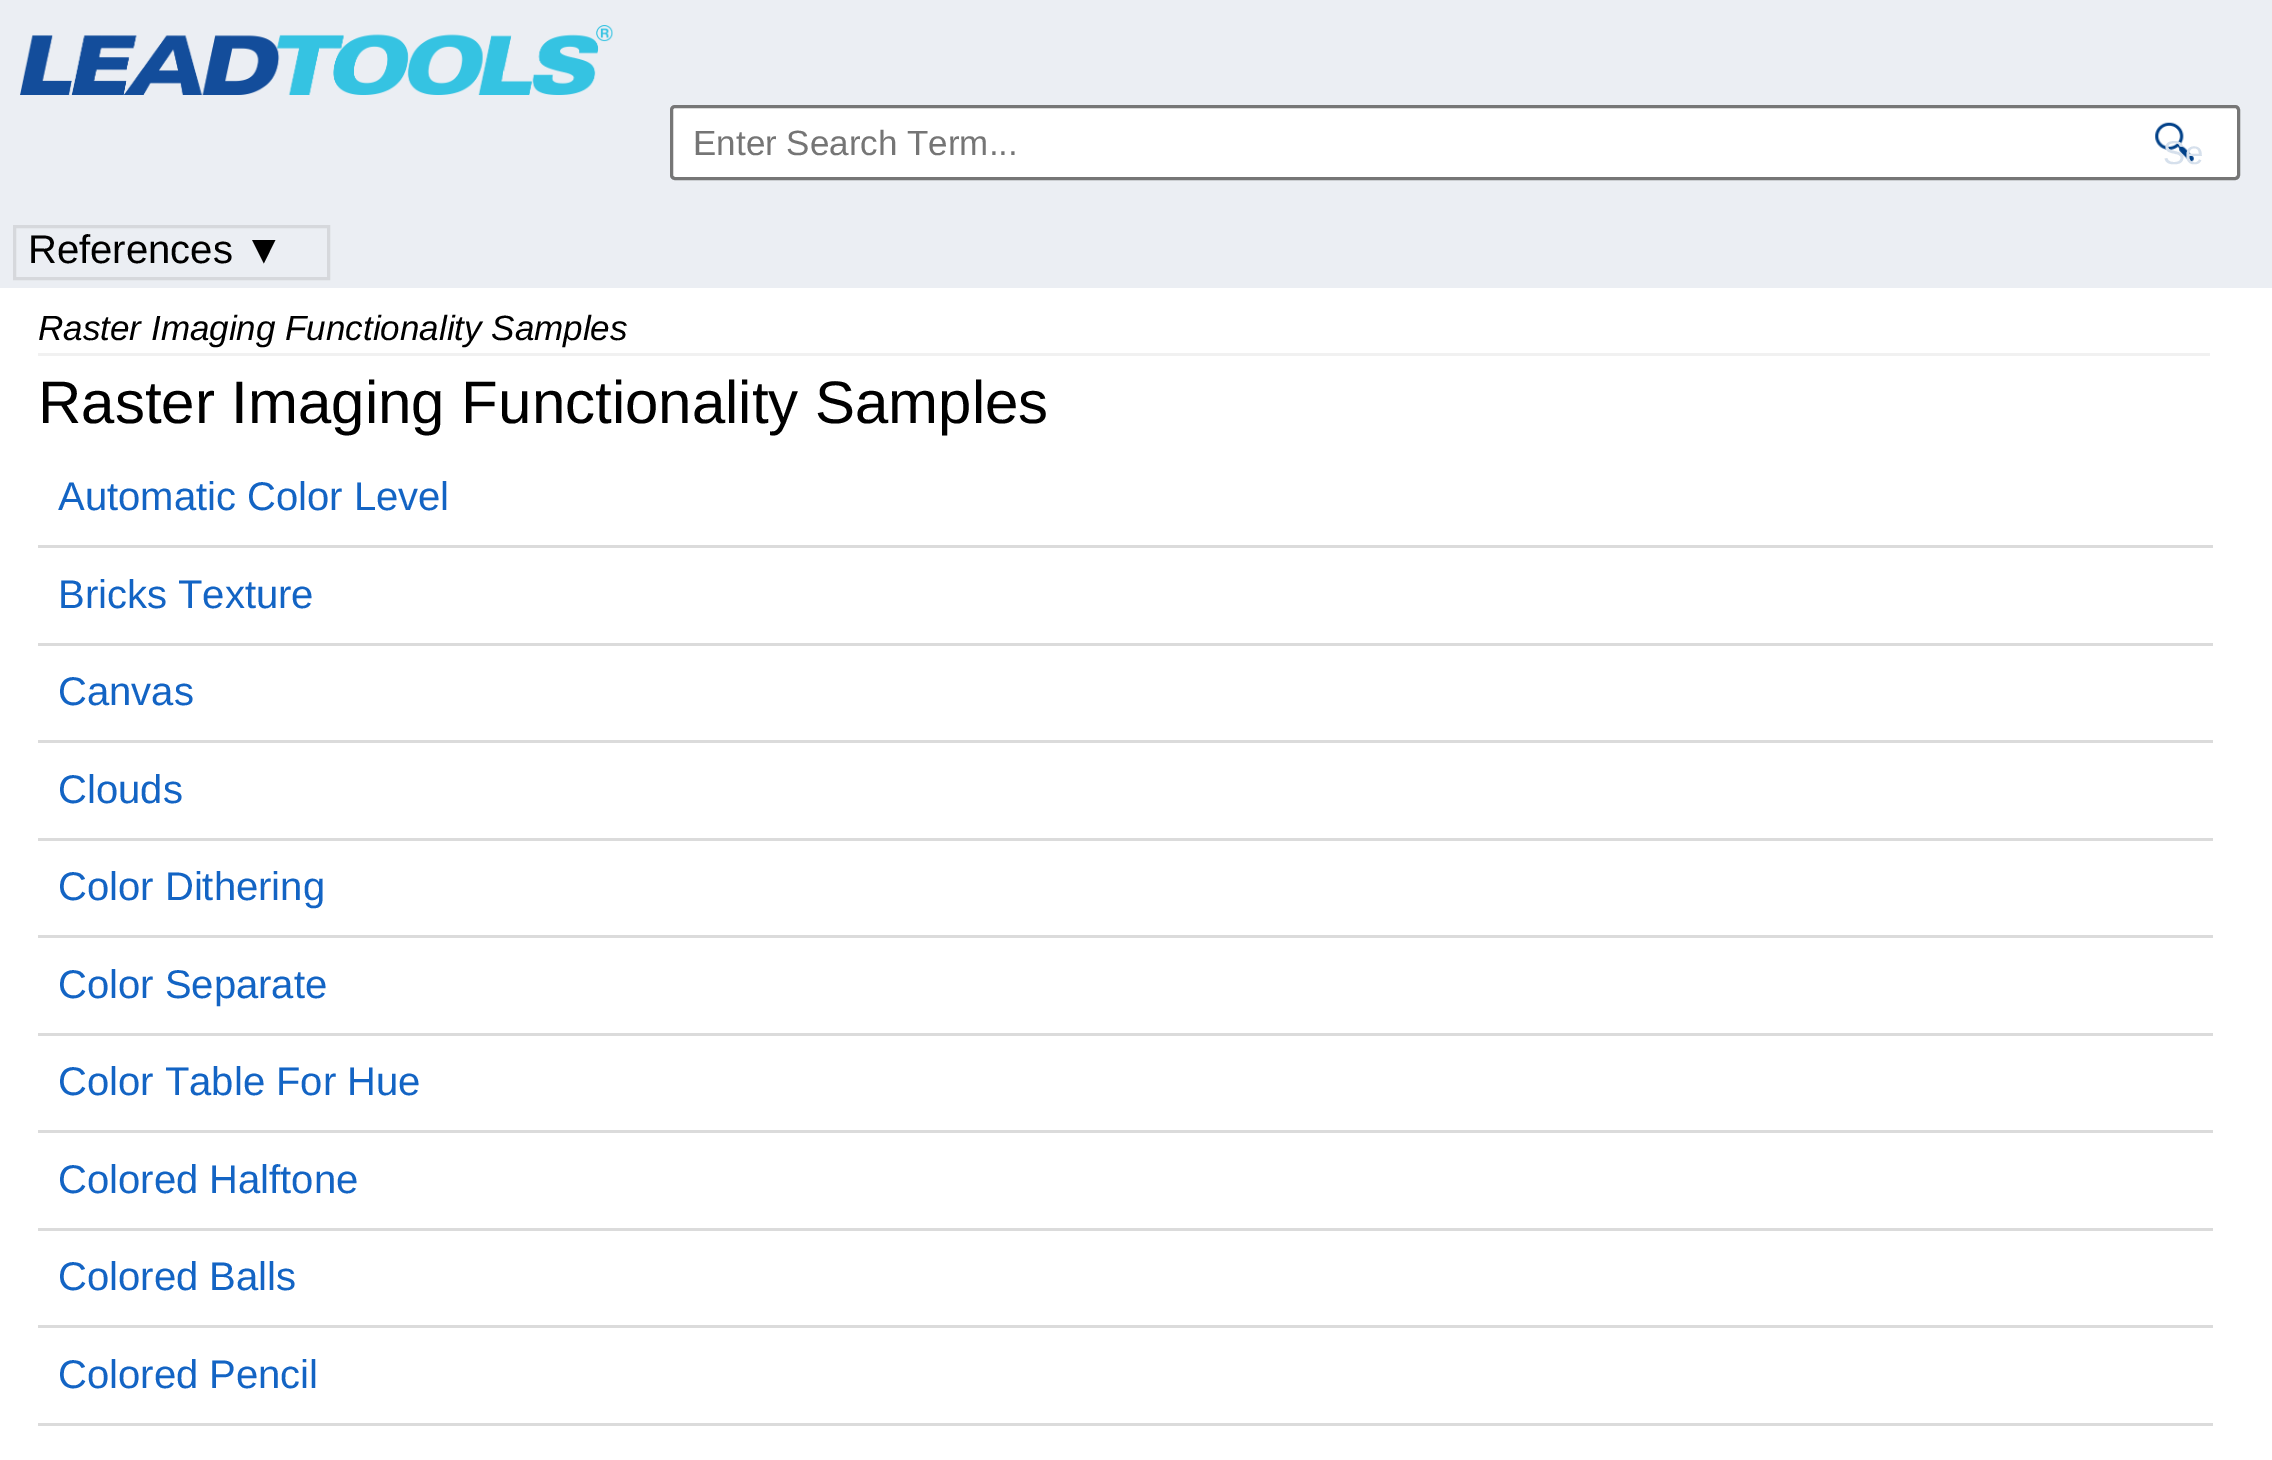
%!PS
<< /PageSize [2272 1460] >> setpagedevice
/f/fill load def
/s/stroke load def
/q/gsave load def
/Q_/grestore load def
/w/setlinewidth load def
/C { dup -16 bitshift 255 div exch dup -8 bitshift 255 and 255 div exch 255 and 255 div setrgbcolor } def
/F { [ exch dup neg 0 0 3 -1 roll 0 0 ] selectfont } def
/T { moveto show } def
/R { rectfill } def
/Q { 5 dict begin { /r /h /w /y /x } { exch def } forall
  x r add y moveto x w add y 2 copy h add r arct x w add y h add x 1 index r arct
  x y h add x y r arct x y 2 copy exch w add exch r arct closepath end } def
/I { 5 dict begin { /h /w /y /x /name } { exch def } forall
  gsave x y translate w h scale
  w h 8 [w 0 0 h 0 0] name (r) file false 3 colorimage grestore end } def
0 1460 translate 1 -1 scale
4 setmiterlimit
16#FFFFFF C
0 0 2272 1460 R
16#EBEEF3 C
0 0 2272 288 R
(1.rgb) 20 25 593 70 I
16#FFFFFF C
671.5 106.5 1567 72 3.5 Q q f Q_
16#767676 C
3 w
s
/LiberationSans-Regular 35 F
16#757575 C
(Enter Search Term...) 693 155 T
(2.rgb) 2155 122 39 40 I
/LiberationSans-Regular 33 F
16#D6E0EC C
(Se) 2163 164 T
16#D6D8DC C
14.5 226.5 314 52 rectstroke
/LiberationSans-Regular 40 F
16#000000 C
(References ▼) 28 263 T
16#F1F1F1 C
38 353 2172 3 R
/LiberationSans-Italic 35 F
16#000000 C
(Raster Imaging Functionality Samples) 38 340 T
/LiberationSans-Regular 60 F
(Raster Imaging Functionality Samples) 38 423 T
16#DBDBDB C
38 545 2175 3 R
/LiberationSans-Regular 40 F
16#1364C4 C
(Automatic Color Level) 58 510 T
16#DBDBDB C
38 643 2175 3 R
16#1364C4 C
(Bricks Texture) 58 608 T
16#DBDBDB C
38 740 2175 3 R
16#1364C4 C
(Canvas) 58 705 T
16#DBDBDB C
38 838 2175 3 R
16#1364C4 C
(Clouds) 58 803 T
16#DBDBDB C
38 935 2175 3 R
16#1364C4 C
(Color Dithering) 58 900 T
16#DBDBDB C
38 1033 2175 3 R
16#1364C4 C
(Color Separate) 58 998 T
16#DBDBDB C
38 1130 2175 3 R
16#1364C4 C
(Color Table For Hue) 58 1095 T
16#DBDBDB C
38 1228 2175 3 R
16#1364C4 C
(Colored Halftone) 58 1193 T
16#DBDBDB C
38 1325 2175 3 R
16#1364C4 C
(Colored Balls) 58 1290 T
16#DBDBDB C
38 1423 2175 3 R
16#1364C4 C
(Colored Pencil) 58 1388 T
showpage
